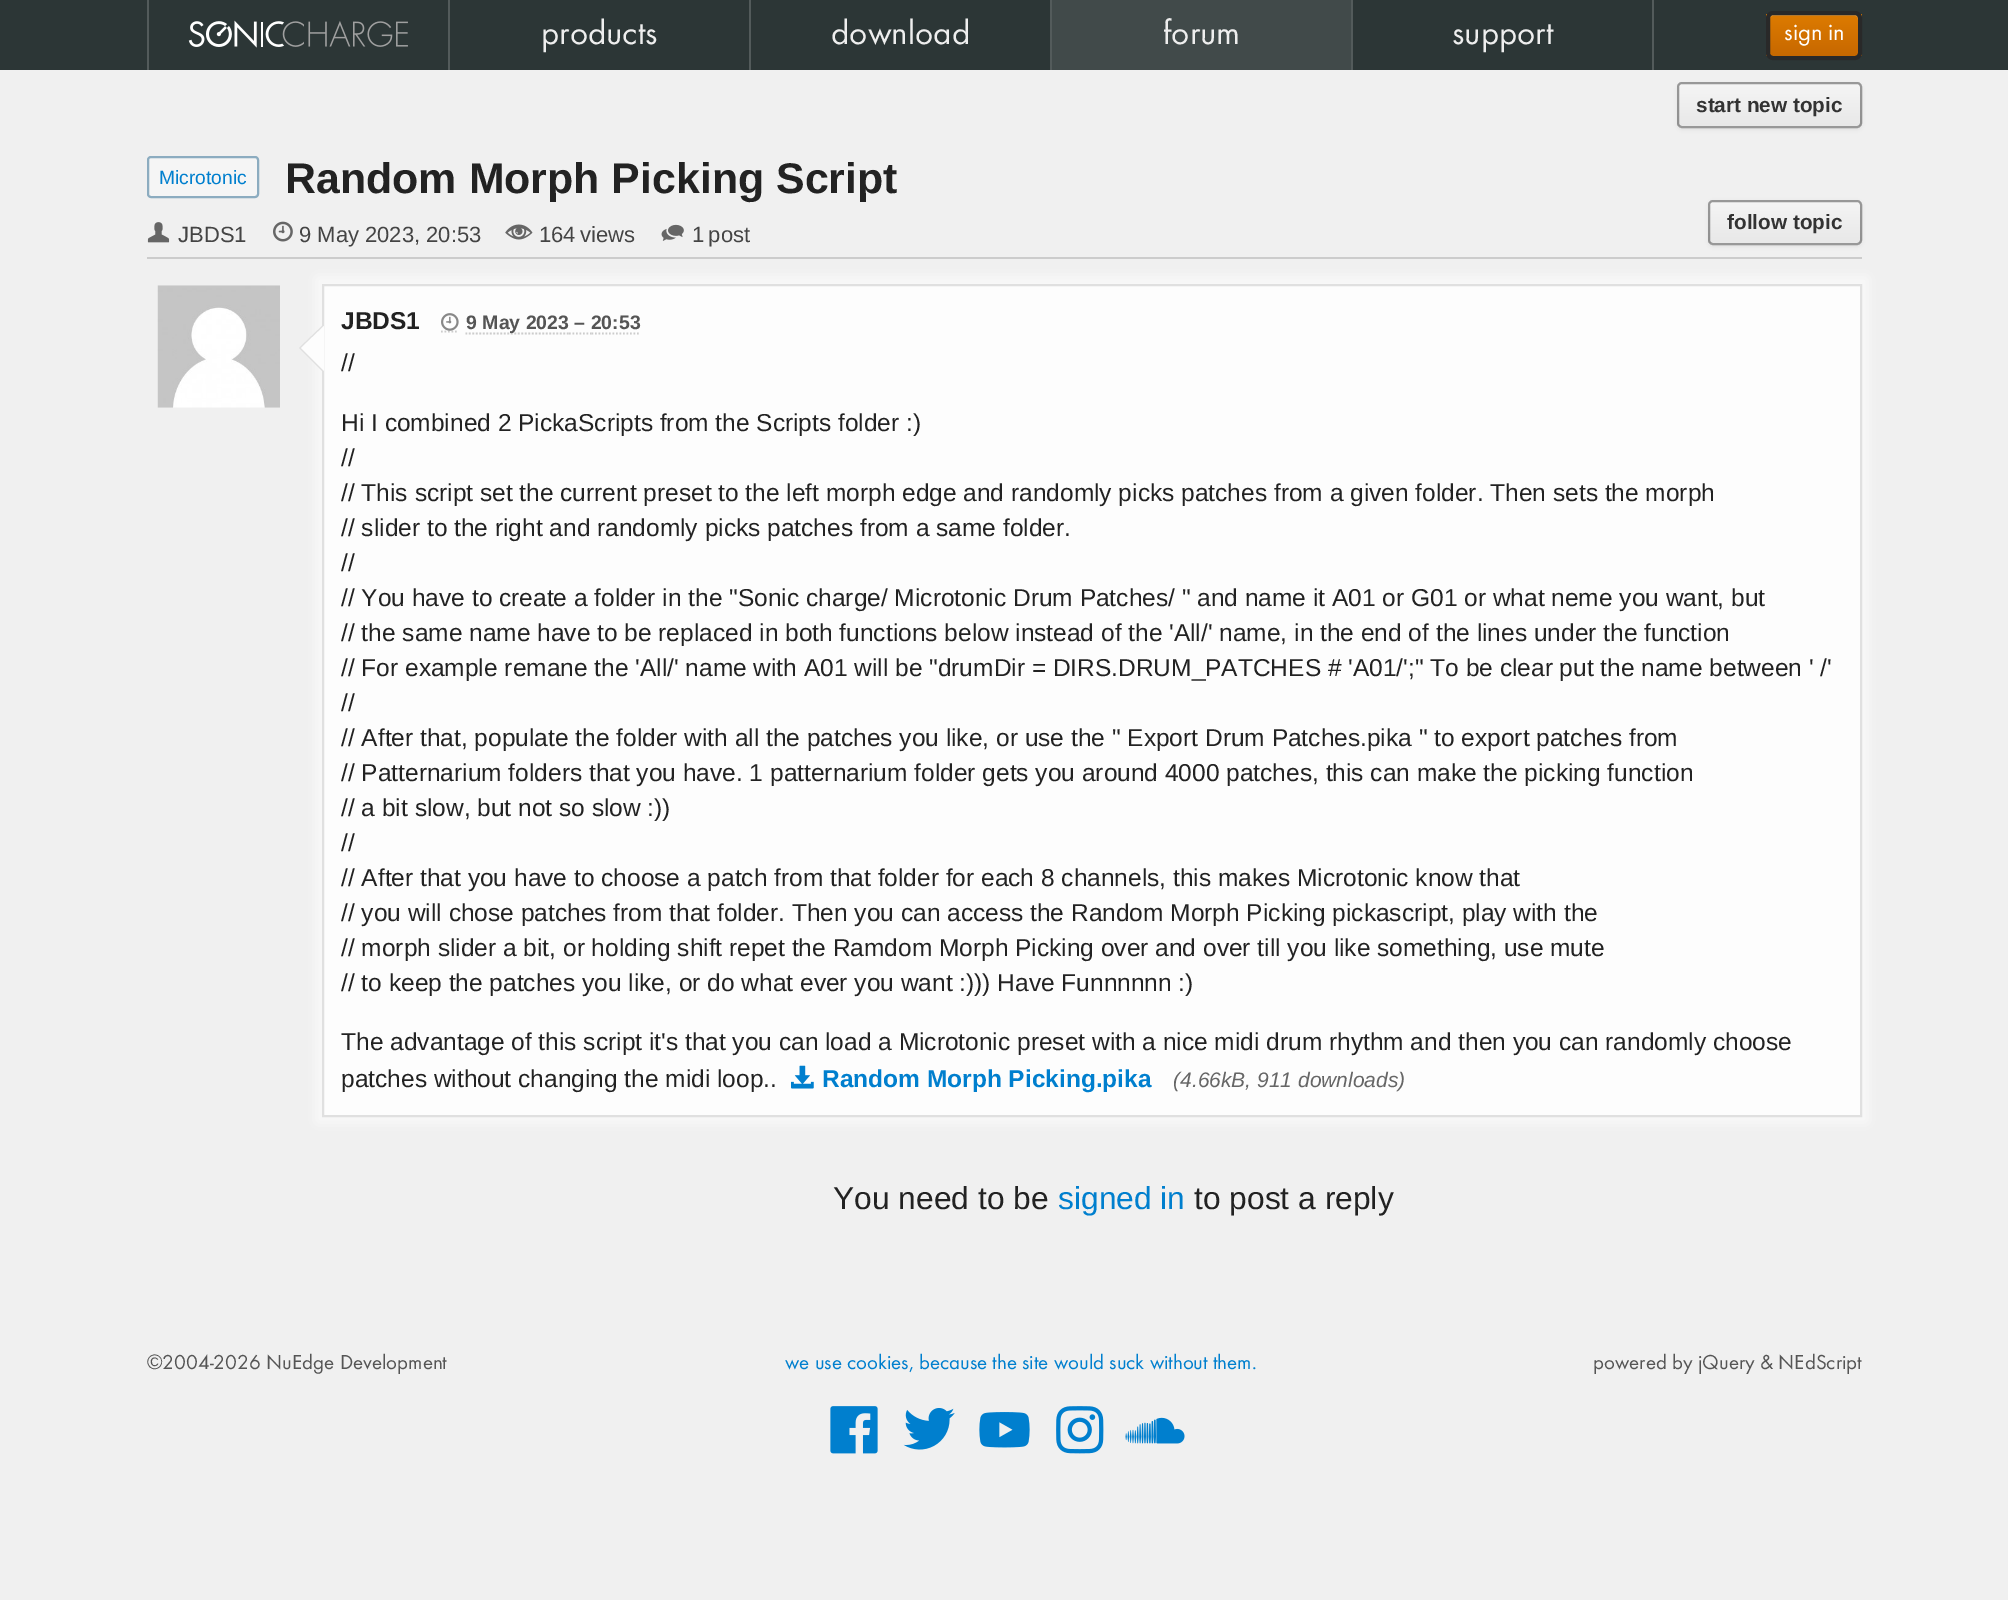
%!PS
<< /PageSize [2008 1600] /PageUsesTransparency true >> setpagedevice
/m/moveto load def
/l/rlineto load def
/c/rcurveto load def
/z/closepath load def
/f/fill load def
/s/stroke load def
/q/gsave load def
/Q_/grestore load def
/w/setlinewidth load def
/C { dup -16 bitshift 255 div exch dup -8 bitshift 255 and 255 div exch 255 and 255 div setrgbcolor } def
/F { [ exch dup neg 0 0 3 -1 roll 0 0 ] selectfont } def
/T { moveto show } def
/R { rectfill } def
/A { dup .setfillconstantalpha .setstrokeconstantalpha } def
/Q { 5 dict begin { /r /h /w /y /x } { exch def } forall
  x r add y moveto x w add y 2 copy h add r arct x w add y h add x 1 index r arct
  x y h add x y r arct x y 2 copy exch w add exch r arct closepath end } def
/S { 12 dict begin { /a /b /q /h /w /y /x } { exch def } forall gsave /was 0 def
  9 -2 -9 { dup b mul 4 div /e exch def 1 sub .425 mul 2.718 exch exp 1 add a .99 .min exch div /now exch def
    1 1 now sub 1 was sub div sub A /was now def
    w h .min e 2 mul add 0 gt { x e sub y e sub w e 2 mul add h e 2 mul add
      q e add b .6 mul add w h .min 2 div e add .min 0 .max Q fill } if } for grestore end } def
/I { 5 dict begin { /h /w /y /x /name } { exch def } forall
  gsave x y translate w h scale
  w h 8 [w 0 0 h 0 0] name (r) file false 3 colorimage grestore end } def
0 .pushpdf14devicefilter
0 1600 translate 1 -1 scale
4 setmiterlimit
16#F0F0F0 C
0 0 2008 1600 R
16#2C3636 C
0 0 2008 70 R
(1.rgb) 188 20 220 28 I
16#535B5B C
147 0 2 70 R
448 0 2 70 R
/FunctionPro-Regular 35 F
16#EEEEEE C
(products) 541 44 T
16#535B5B C
749 0 2 70 R
16#EEEEEE C
(download) 831 44 T
16#535B5B C
1050 0 2 70 R
16#414A4A C
1052 0 299 70 R
16#EEEEEE C
(forum) 1163 44 T
16#535B5B C
1351 0 2 70 R
16#EEEEEE C
(support) 1452 44 T
16#535B5B C
1652 0 2 70 R
q
1766 11 96 49 7 Q clip newpath
q 1766 14 m 96 0 l 0 42 l -96 0 l z clip newpath
<< /ShadingType 2 /ColorSpace /DeviceRGB /Coords [1814 14 1814 56] /Extend [true true] /Function << /FunctionType 2 /Domain [0 1] /C0 [.867 .482 0] /C1 [.78 .408 0] /N 1 >> >> shfill Q_
Q_
0.2 A
16#FFFFFF C
1773 16 m 82 0 l 4 0 3 6 3 9 c 0 30 l 1 -1 1 -2 1 -3 c 0 -34 l 0 -2 -2 -4 -4 -4 c -82 0 l -2 0 -4 2 -4 4 c 0 1 l 0 -2 2 -3 4 -3 c z f
1 A
16#292929 C
4 w
1768 13 92 45 5 Q s
/FunctionPro-Regular 24.5 F
16#FFFFFF C
(sign in) 1784 40 T
16#000000 C
1677 84 185 46 5 2 .05 S
16#F5F5F5 C
1677 82 185 46 5 Q f
q
1677 82 185 46 5 Q clip newpath
q 1677 84 m 185 0 l 0 42 l -185 0 l z clip newpath
<< /ShadingType 2 /ColorSpace /DeviceRGB /Coords [1769 84 1769 126] /Extend [true true] /Function << /FunctionType 2 /Domain [0 1] /C0 [.961 .961 .961] /C1 [.91 .91 .91] /N 1 >> >> shfill Q_
Q_
0.38 A
16#000000 C
2 w
1678 83 183 44 4 Q s
/LiberationSans-Bold 20.75 F
1 A
16#333333 C
(start new topic) 1696 112 T
16#CCCCCC C
147 257 1715 2 R
16#F5F5F5 C
148 157 110 40 3 Q q f Q_
16#8CACC0 C
s
/LiberationSans-Regular 19.25 F
16#007FCE C
(Microtonic) 159 184 T
/LiberationSans-Bold 42.9 F
16#222222 C
(Random Morph Picking Script) 285 193 T
(2.rgb) 147 222 23 21 I
/LiberationSans-Regular 22 F
16#444444 C
(JBDS1) 178 242 T
(3.rgb) 273 221 20 21 I
(9 May 2023, 20:53) 299 242 T
(4.rgb) 505 224 28 16 I
539 242 m -2 0 32 (164 views) widthshow
(5.rgb) 661 224 23 17 I
692 242 m -2 0 32 (1 post) widthshow
16#000000 C
1708 201 154 46 5 2 .05 S
16#F5F5F5 C
1708 200 154 45 5 Q f
q
1708 200 154 45 5 Q clip newpath
q 1708 201 m 154 0 l 0 42 l -154 0 l z clip newpath
<< /ShadingType 2 /ColorSpace /DeviceRGB /Coords [1785 201 1785 243] /Extend [true true] /Function << /FunctionType 2 /Domain [0 1] /C0 [.961 .961 .961] /C1 [.91 .91 .91] /N 1 >> >> shfill Q_
Q_
0.38 A
16#000000 C
1709 201 152 43 4 Q s
/LiberationSans-Bold 20.75 F
1 A
16#333333 C
(follow topic) 1727 229 T
16#FFFFFF C
317 278 1550 844 0 7 .74 S
16#FDFDFD C
323 285 m 1538 0 l 0 831 l -1538 0 l z q f Q_
16#E0E0E0 C
s
324 324 m 0 49 l -25 -25 l z f
(6.rgb) 157 285 123 123 I
/LiberationSans-Bold 24.5 F
16#222222 C
(JBDS1) 341 329 T
16#CCCCCC C
1.8 w
[1.75 1.75] 0 setdash
441 331.5 m 17.5 0 l s
465.5 333.5 m 103.5 0 l s
569 333.5 m 22.5 0 l s
591.5 333.5 m 49 0 l s
(7.rgb) 441 313 18 18 I
/LiberationSans-Bold 19.5 F
16#555555 C
(9 May 2023 – 20:53) 466 329 T
16#FDFDFD C
324 326 m 0 45 l -23 -23 l z f
/LiberationSans-Regular 24.5 F
16#222222 C
(//) 341 371 T
(Hi I combined 2 PickaScripts from the Scripts folder :\)) 341 431 T
(//) 341 466 T
(// This script set the current preset to the left morph edge and randomly picks patches from a given folder. Then sets the morph) 341 501 T
(// slider to the right and randomly picks patches from a same folder.) 341 536 T
(//) 341 571 T
(// You have to create a folder in the "Sonic charge/ Microtonic Drum Patches/ " and name it A01 or G01 or what neme you want, but) 341 606 T
(// the same name have to be replaced in both functions below instead of the 'All/' name, in the end of the lines under the function) 341 641 T
(// For example remane the 'All/' name with A01 will be "drumDir = DIRS.DRUM_PATCHES # 'A01/';" To be clear put the name between ' /') 341 676 T
(//) 341 711 T
(// After that, populate the folder with all the patches you like, or use the " Export Drum Patches.pika " to export patches from) 341 746 T
(// Patternarium folders that you have. 1 patternarium folder gets you around 4000 patches, this can make the picking function) 341 781 T
(// a bit slow, but not so slow :\)\)) 341 816 T
(//) 341 851 T
(// After that you have to choose a patch from that folder for each 8 channels, this makes Microtonic know that) 341 886 T
(// you will chose patches from that folder. Then you can access the Random Morph Picking pickascript, play with the) 341 921 T
(// morph slider a bit, or holding shift repet the Ramdom Morph Picking over and over till you like something, use mute) 341 956 T
(// to keep the patches you like, or do what ever you want :\)\)\) Have Funnnnnn :\)) 341 991 T
(The advantage of this script it's that you can load a Microtonic preset with a nice midi drum rhythm and then you can randomly choose) 341 1050 T
(patches without changing the midi loop..) 341 1087 T
(8.rgb) 791 1065 23 24 I
/LiberationSans-Bold 24.5 F
16#007FCE C
(Random Morph Picking.pika) 822 1087 T
/LiberationSans-Italic 21 F
16#666666 C
(\(4.66kB, 911 downloads\)) 1173 1087 T
/LiberationSans-Regular 31.75 F
16#222222 C
(You need to be) 833 1209 T
16#007FCE C
(signed in) 1058 1209 T
16#222222 C
(to post a reply) 1194 1209 T
/LiberationSans-Regular 21 F
16#555555 C
(©) 147 1369 T
/FunctionPro-Regular 21 F
(2004-2026 NuEdge Development) 162 1369 T
16#007FCE C
(we use cookies, because the site would suck without them.) 785 1369 T
16#555555 C
(powered by jQuery & NEdScript) 1593 1369 T
(9.rgb) 830 1406 48 48 I
(10.rgb) 903 1408 52 42 I
(11.rgb) 979 1412 51 36 I
(12.rgb) 1056 1406 48 48 I
(13.rgb) 1125 1417 60 27 I
.poppdf14devicefilter showpage
